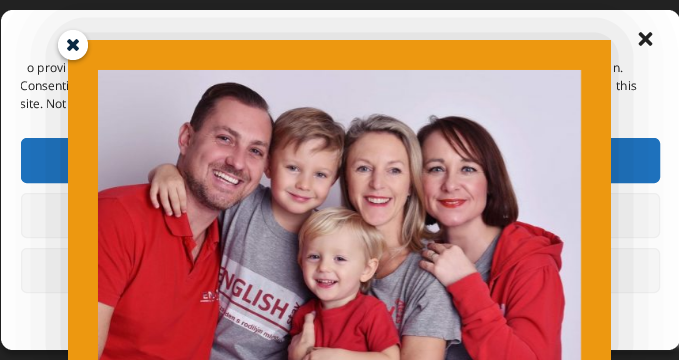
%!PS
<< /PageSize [679 360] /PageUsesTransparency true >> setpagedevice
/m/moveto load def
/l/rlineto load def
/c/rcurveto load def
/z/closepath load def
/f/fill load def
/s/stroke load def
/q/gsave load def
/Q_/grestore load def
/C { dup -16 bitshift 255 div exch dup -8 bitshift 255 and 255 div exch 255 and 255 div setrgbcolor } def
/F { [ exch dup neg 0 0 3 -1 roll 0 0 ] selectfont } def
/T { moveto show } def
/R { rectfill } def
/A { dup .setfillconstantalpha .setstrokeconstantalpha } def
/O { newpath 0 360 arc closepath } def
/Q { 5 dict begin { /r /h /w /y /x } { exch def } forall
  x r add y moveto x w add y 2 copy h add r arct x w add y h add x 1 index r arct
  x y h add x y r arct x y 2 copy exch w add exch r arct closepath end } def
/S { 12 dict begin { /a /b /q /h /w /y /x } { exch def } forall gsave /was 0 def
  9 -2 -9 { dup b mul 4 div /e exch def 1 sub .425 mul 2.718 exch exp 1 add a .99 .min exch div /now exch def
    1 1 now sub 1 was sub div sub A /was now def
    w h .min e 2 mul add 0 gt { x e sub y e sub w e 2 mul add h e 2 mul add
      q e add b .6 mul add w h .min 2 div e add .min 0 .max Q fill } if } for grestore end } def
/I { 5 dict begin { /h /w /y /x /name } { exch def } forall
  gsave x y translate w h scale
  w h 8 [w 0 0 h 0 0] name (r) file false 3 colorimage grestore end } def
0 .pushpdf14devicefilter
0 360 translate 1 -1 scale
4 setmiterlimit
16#222222 C
0 0 679 360 R
q
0 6 m 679 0 l 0 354 l -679 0 l z 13 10 m 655 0 l 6.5 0 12 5.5 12 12 c 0 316 l 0 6.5 -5.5 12 -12 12 c -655 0 l -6.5 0 -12 -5.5 -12 -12 c 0 -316 l 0 -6.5 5.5 -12 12 -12 c z eoclip newpath
16#000000 C
1 16 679 340 12 3 .23 S
Q_
16#808080 C
609 286 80 60 2 2.5 1 S
16#FFFFFF C
1 10 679 340 12 Q f
(3.rgb) 638 32 15 14 I
16#1E73BE C
21.5 138.5 638 44 5.5 Q q f Q_
s
16#F9F9F9 C
21.5 193.5 638 44 5.5 Q q f Q_
16#F2F2F2 C
s
16#F9F9F9 C
21.5 248.5 638 44 5.5 Q q f Q_
16#F2F2F2 C
s
16#000000 C
68 40 543 320 0 30 .2 S
q
21 59 639 59 rectclip
/OpenSans-Regular 12 F
16#222222 C
(Consenti) 20 90 T
Q_
16#ED9810 C
68 40 543 320 R
16#000000 C
58 32 30 30 15 2 .34 S
16#FFFFFF C
73 45 15 O f
(1.rgb) 67 39 12 12 I
(2.rgb) 97 69 485 291 I
/OpenSans-Regular 12 F
16#222222 C
(o provi) 27 72 T
(n.) 613 72 T
(this) 616 90 T
q
21 59 639 59 rectclip
(site. Not) 20 108 T
Q_
.poppdf14devicefilter showpage
